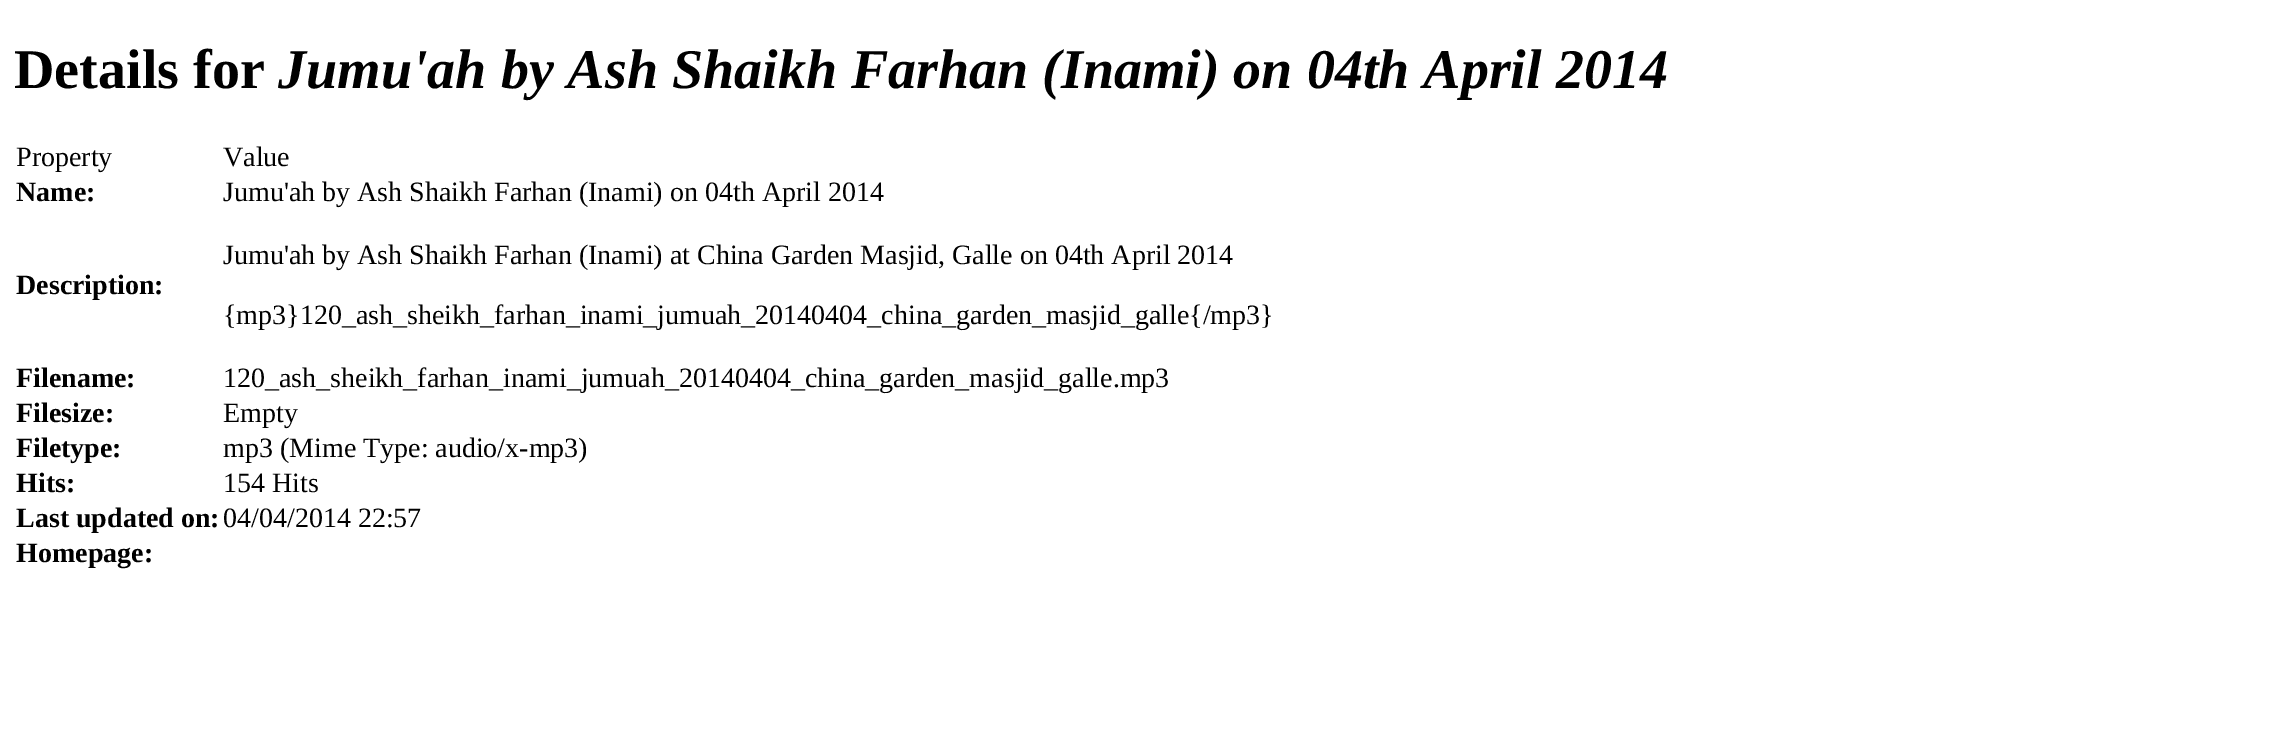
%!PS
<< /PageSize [2282 748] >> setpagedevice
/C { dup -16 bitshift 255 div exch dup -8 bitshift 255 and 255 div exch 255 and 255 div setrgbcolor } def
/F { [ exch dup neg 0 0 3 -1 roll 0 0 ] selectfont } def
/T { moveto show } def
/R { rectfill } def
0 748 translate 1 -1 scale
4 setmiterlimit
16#FFFFFF C
0 0 2282 748 R
/LiberationSerif-Bold 56 F
16#000000 C
(Details for) 14 88 T
/LiberationSerif-BoldItalic 56 F
(Jumu'ah by Ash Shaikh Farhan \(Inami\) on 04th April 2014) 278 88 T
/LiberationSerif-Regular 28 F
(Property) 16 166 T
(Value) 223 166 T
/LiberationSerif-Bold 28 F
(Name:) 16 201 T
/LiberationSerif-Regular 28 F
(Jumu'ah by Ash Shaikh Farhan \(Inami\) on 04th April 2014) 223 201 T
/LiberationSerif-Bold 28 F
(Description:) 16 294 T
/LiberationSerif-Regular 28 F
(Jumu'ah by Ash Shaikh Farhan \(Inami\) at China Garden Masjid, Galle on 04th April 2014) 223 264 T
({mp3}120_ash_sheikh_farhan_inami_jumuah_20140404_china_garden_masjid_galle{/mp3}) 223 324 T
/LiberationSerif-Bold 28 F
(Filename:) 16 387 T
/LiberationSerif-Regular 28 F
(120_ash_sheikh_farhan_inami_jumuah_20140404_china_garden_masjid_galle.mp3) 223 387 T
/LiberationSerif-Bold 28 F
(Filesize:) 16 422 T
/LiberationSerif-Regular 28 F
(Empty) 223 422 T
/LiberationSerif-Bold 28 F
(Filetype:) 16 457 T
/LiberationSerif-Regular 28 F
(mp3 \(Mime Type: audio/x-mp3\)) 223 457 T
/LiberationSerif-Bold 28 F
(Hits:) 16 492 T
/LiberationSerif-Regular 28 F
(154 Hits) 223 492 T
/LiberationSerif-Bold 28 F
(Last updated on:) 16 527 T
/LiberationSerif-Regular 28 F
(04/04/2014 22:57) 223 527 T
/LiberationSerif-Bold 28 F
(Homepage:) 16 562 T
showpage
